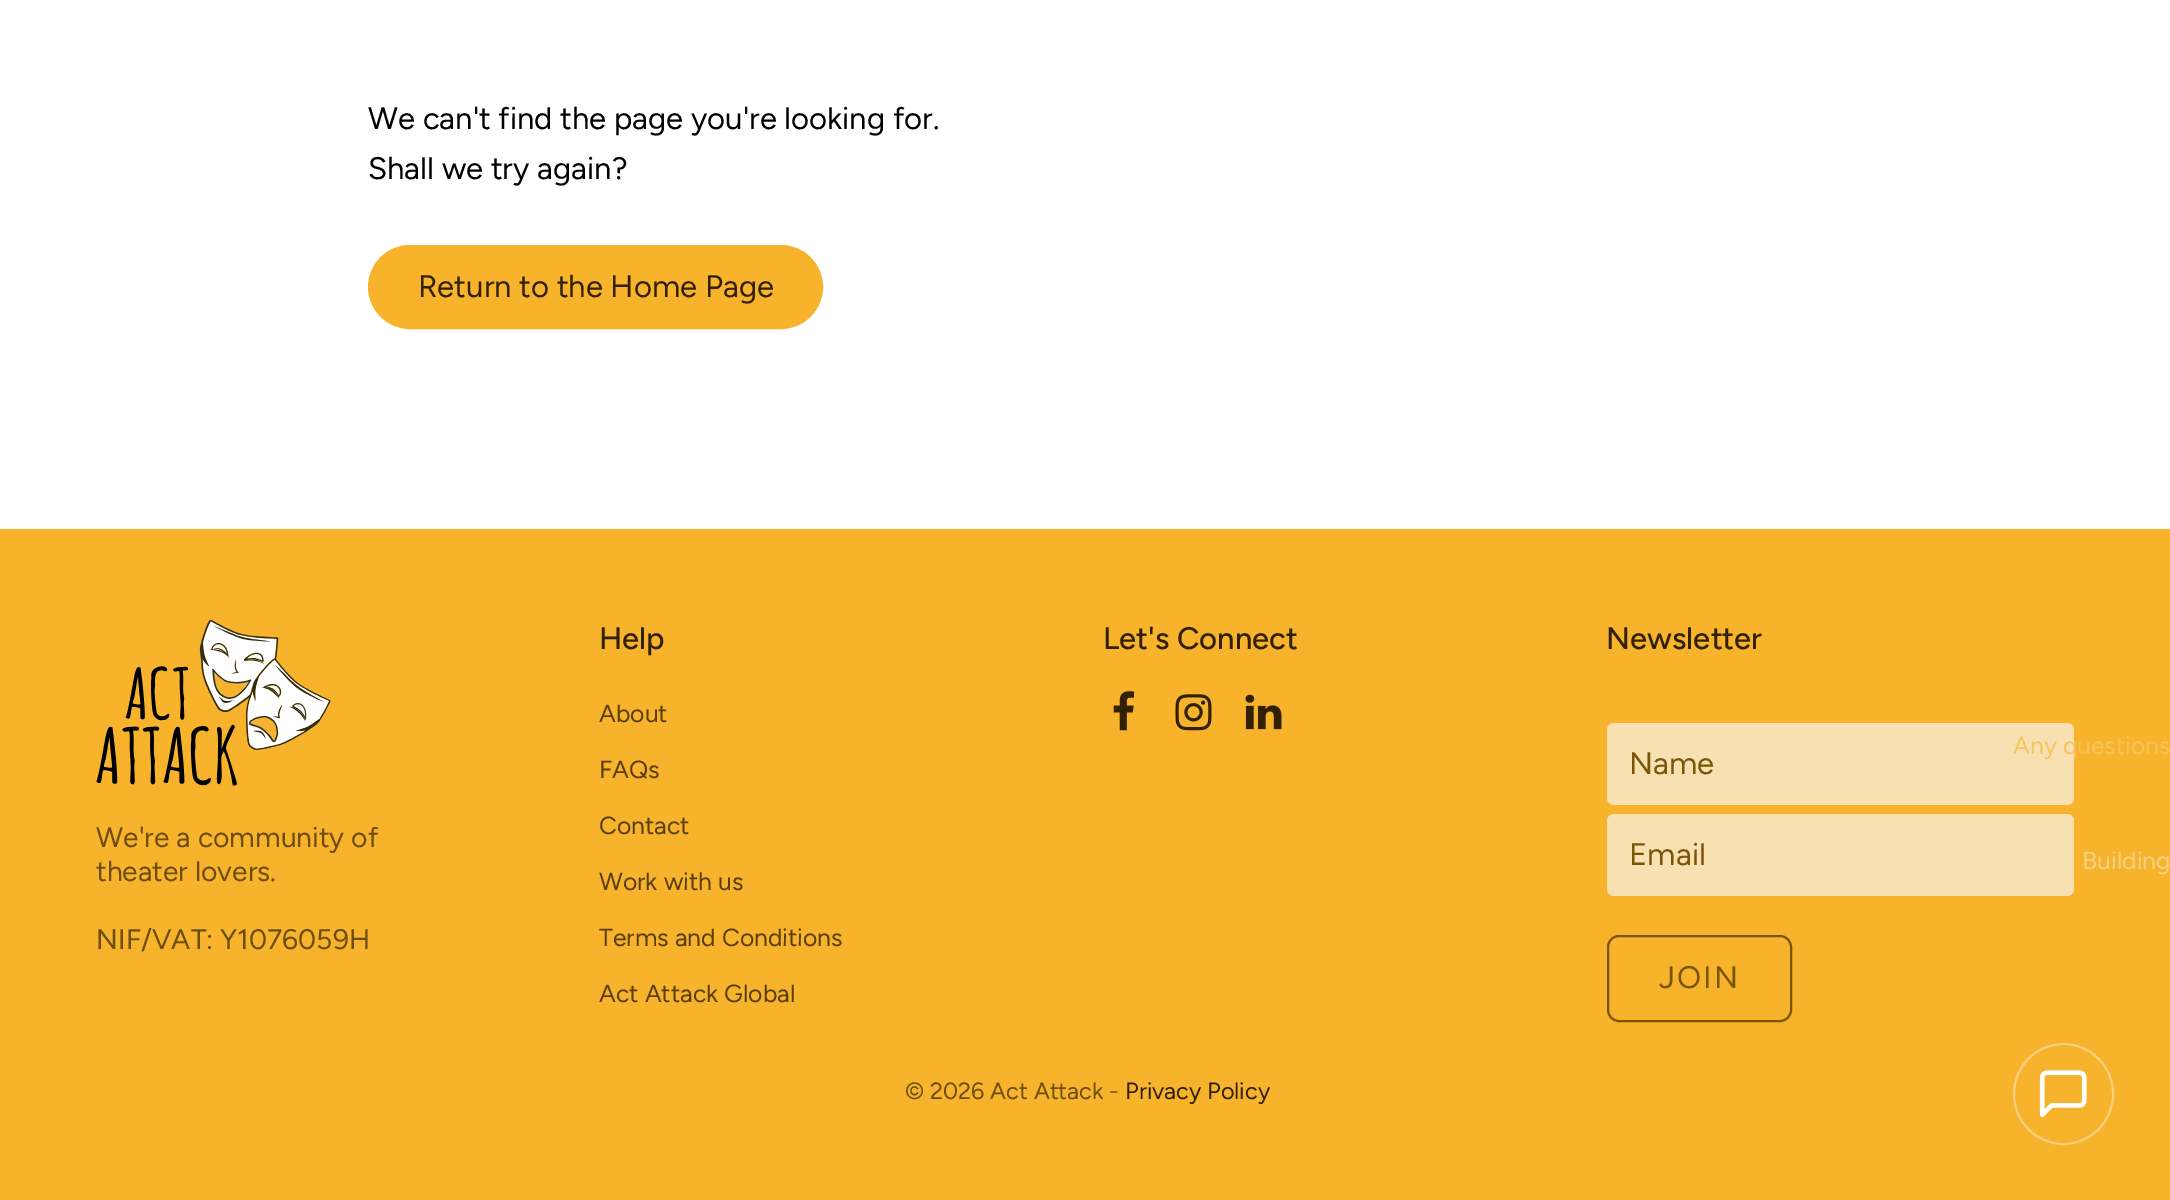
%!PS
<< /PageSize [2170 1200] >> setpagedevice
/m/moveto load def
/f/fill load def
/s/stroke load def
/q/gsave load def
/Q_/grestore load def
/w/setlinewidth load def
/C { dup -16 bitshift 255 div exch dup -8 bitshift 255 and 255 div exch 255 and 255 div setrgbcolor } def
/F { [ exch dup neg 0 0 3 -1 roll 0 0 ] selectfont } def
/T { moveto show } def
/R { rectfill } def
/Q { 5 dict begin { /r /h /w /y /x } { exch def } forall
  x r add y moveto x w add y 2 copy h add r arct x w add y h add x 1 index r arct
  x y h add x y r arct x y 2 copy exch w add exch r arct closepath end } def
/I { 5 dict begin { /h /w /y /x /name } { exch def } forall
  gsave x y translate w h scale
  w h 8 [w 0 0 h 0 0] name (r) file false 3 colorimage grestore end } def
0 1200 translate 1 -1 scale
4 setmiterlimit
16#FFFFFF C
0 0 2170 1200 R
/Figtree-Regular 31.1 F
16#000000 C
(We can't find the page you're looking for.) 368 129 T
(Shall we try again?) 368 179 T
16#F7B32B C
370 247 451 80 40 Q q f Q_
4 w
s
16#312102 C
(Return to the Home Page) 418 297 T
16#F7B32B C
0 529 2170 671 R
(1.rgb) 96 620 235 166 I
/Figtree-Regular 28.25 F
16#6C4D0E C
(We're a community of) 96 847 T
(theater lovers.) 96 881 T
(NIF/VAT: Y1076059H) 96 949 T
/Figtree-Medium 31.1 F
16#312102 C
(Help) 599 649 T
/Figtree-Regular 24.75 F
16#593E0A C
(About) 599 722 T
(FAQs) 599 778 T
(Contact) 599 834 T
(Work with us) 599 890 T
(Terms and Conditions) 599 946 T
(Act Attack Global) 599 1002 T
/Figtree-Medium 31.1 F
16#312102 C
(Let's Connect) 1103 649 T
(2.rgb) 1113 691 21 40 I
(3.rgb) 1175 694 37 37 I
(4.rgb) 1245 694 37 36 I
(Newsletter) 1606 649 T
16#F7E0B2 C
1607 723 467 82 7 Q f
/Figtree-Regular 31.1 F
16#7B5404 C
(Name) 1629 774 T
16#F7E0B2 C
1607 814 467 82 7 Q f
16#7B5404 C
(Email) 1629 865 T
2 w
1608 936 183 85 11 Q s
1659 988 m 2 0 (JOIN) ashow
/Figtree-Regular 23.5 F
16#6C4D0E C
(© 2026 Act Attack -) 905 1099 T
16#312102 C
(Privacy Policy) 1125 1099 T
/Figtree-Regular 24.75 F
16#F7C35B C
(Any questions) 2013 754 T
16#F7D184 C
(Building) 2082 869 T
16#F7CF80 C
2014 1044 99 100 49.5 Q s
(5.rgb) 2039 1070 48 48 I
showpage
